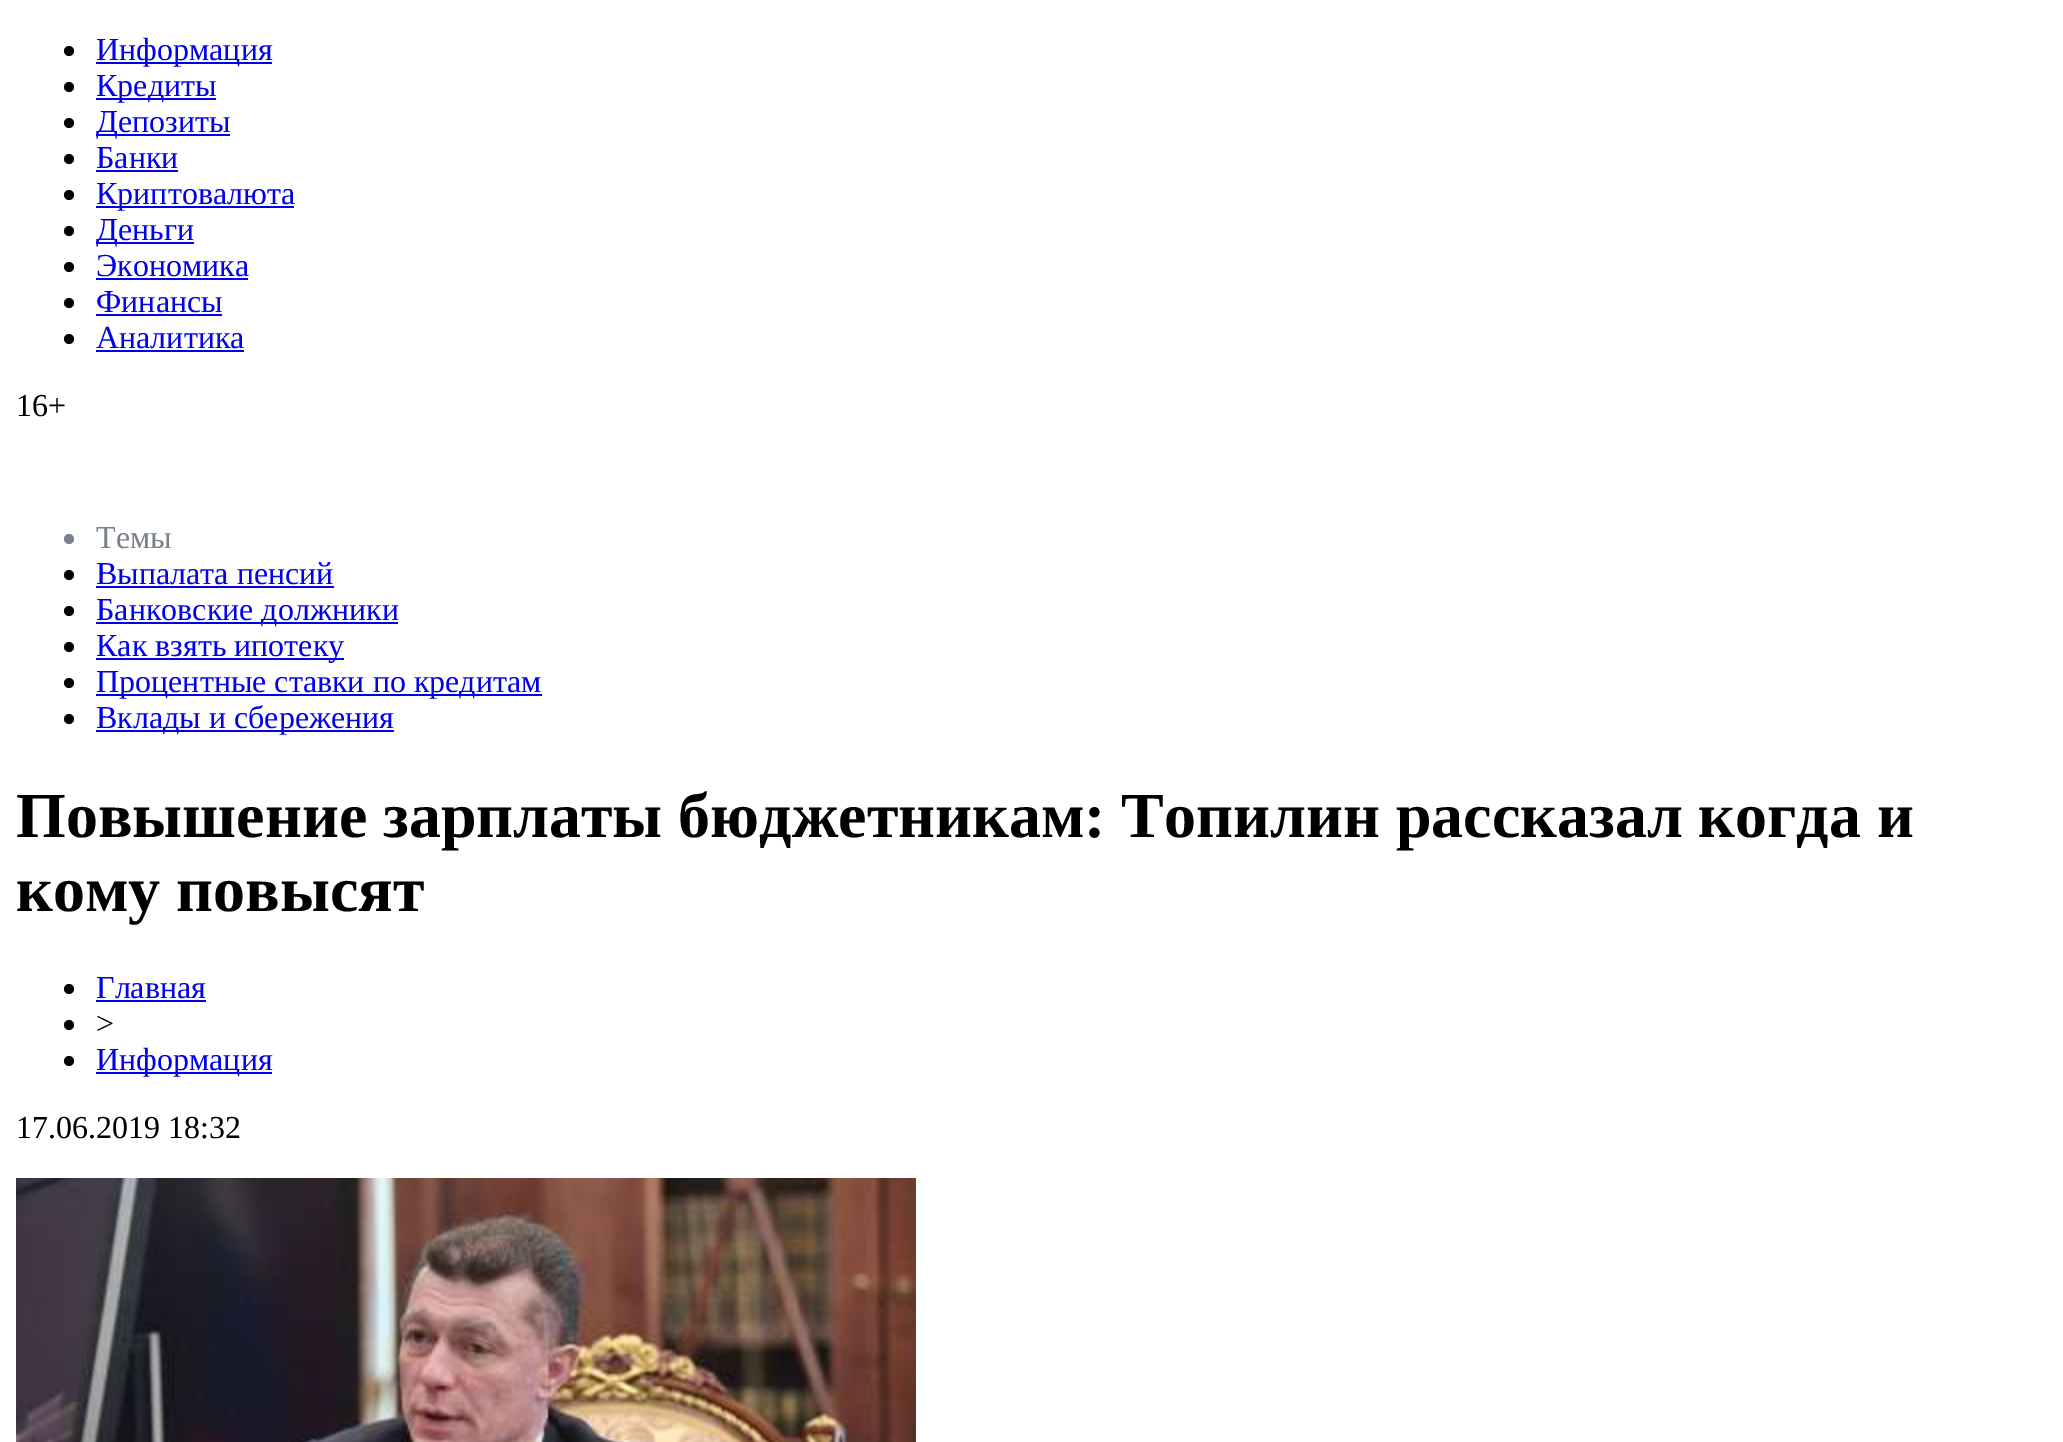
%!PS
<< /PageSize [2063 1442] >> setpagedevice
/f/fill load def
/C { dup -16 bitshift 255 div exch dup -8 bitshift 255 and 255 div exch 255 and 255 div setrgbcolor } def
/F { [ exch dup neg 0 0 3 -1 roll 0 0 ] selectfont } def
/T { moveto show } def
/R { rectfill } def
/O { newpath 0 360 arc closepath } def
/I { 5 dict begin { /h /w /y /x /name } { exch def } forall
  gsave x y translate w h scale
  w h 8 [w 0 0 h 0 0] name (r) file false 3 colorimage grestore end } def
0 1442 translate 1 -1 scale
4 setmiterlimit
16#FFFFFF C
0 0 2063 1442 R
16#000000 C
69 51 5 O f
16#0000EE C
96 62 176 2 R
/LiberationSerif-Regular 32 F
(Информация) 96 60 T
16#000000 C
69 87 5 O f
16#0000EE C
96 98 120 2 R
(Кредиты) 96 96 T
16#000000 C
69 123 5 O f
16#0000EE C
96 134 134 2 R
(Депозиты) 96 132 T
16#000000 C
69 159 5 O f
16#0000EE C
(Банки) 96 168 T
96 170 82 2 R
16#000000 C
69 195 5 O f
16#0000EE C
96 206 198 2 R
(Криптовалюта) 96 204 T
16#000000 C
69 231 5 O f
16#0000EE C
96 242 98 2 R
(Деньги) 96 240 T
16#000000 C
69 267 5 O f
16#0000EE C
(Экономика) 96 276 T
96 278 152 2 R
16#000000 C
69 303 5 O f
16#0000EE C
(Финансы) 96 312 T
96 314 126 2 R
16#000000 C
69 339 5 O f
16#0000EE C
(Аналитика) 96 348 T
96 350 148 2 R
16#000000 C
(16+) 16 416 T
16#78808C C
69 539 5 O f
(Темы) 96 548 T
16#000000 C
69 575 5 O f
16#0000EE C
(Выпалата пенсий) 96 584 T
96 586 238 2 R
16#000000 C
69 611 5 O f
16#0000EE C
96 622 302 2 R
(Банковские должники) 96 620 T
16#000000 C
69 647 5 O f
16#0000EE C
96 658 248 2 R
(Как взять ипотеку) 96 656 T
16#000000 C
69 683 5 O f
16#0000EE C
96 694 446 2 R
(Процентные ставки по кредитам) 96 692 T
16#000000 C
69 719 5 O f
16#0000EE C
96 730 298 2 R
(Вклады и сбережения) 96 728 T
/LiberationSerif-Bold 64 F
16#000000 C
(Повышение зарплаты бюджетникам: Топилин рассказал когда и) 16 837 T
(кому повысят) 16 911 T
69 989 5 O f
/LiberationSerif-Regular 32 F
16#0000EE C
(Главная) 96 998 T
96 1000 110 2 R
16#000000 C
69 1025 5 O f
(>) 96 1034 T
69 1061 5 O f
16#0000EE C
96 1072 176 2 R
(Информация) 96 1070 T
16#000000 C
(17.06.2019 18:32) 16 1138 T
(1.rgb) 16 1178 900 264 I
showpage
